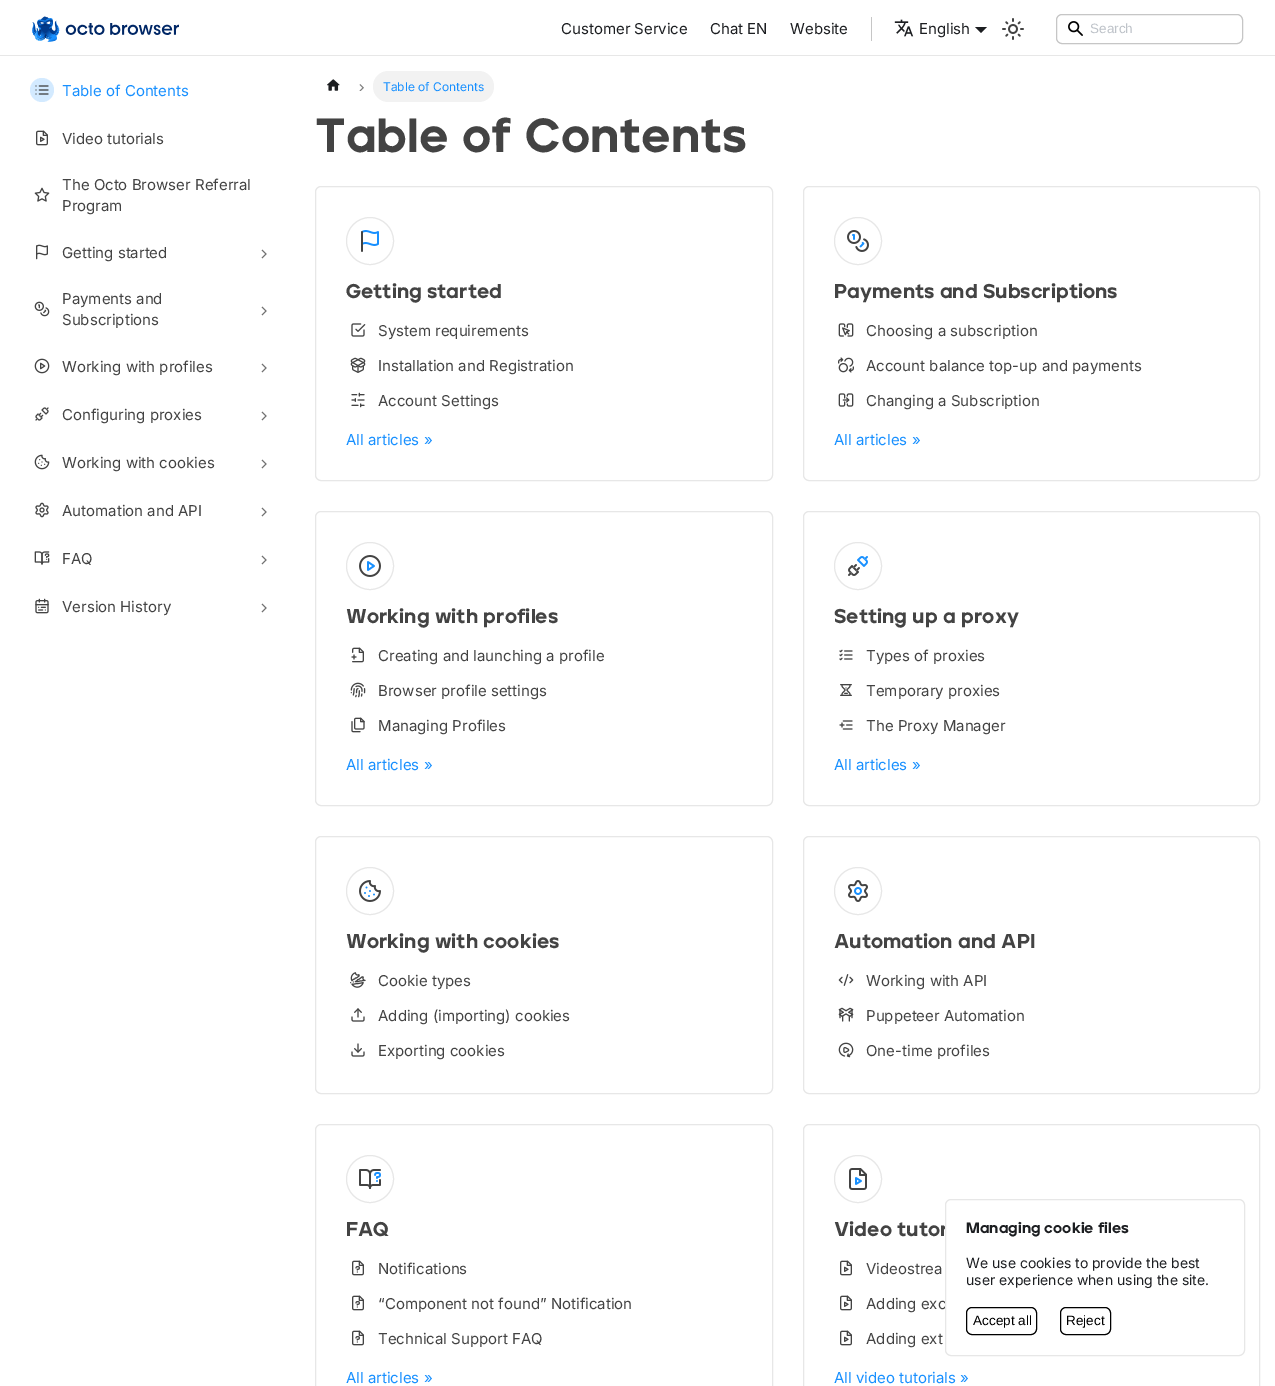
%!PS
<< /PageSize [1275 1386] >> setpagedevice
/m/moveto load def
/l/rlineto load def
/z/closepath load def
/f/fill load def
/s/stroke load def
/q/gsave load def
/Q_/grestore load def
/C { dup -16 bitshift 255 div exch dup -8 bitshift 255 and 255 div exch 255 and 255 div setrgbcolor } def
/F { [ exch dup neg 0 0 3 -1 roll 0 0 ] selectfont } def
/T { moveto show } def
/R { rectfill } def
/O { newpath 0 360 arc closepath } def
/Q { 5 dict begin { /r /h /w /y /x } { exch def } forall
  x r add y moveto x w add y 2 copy h add r arct x w add y h add x 1 index r arct
  x y h add x y r arct x y 2 copy exch w add exch r arct closepath end } def
/I { 5 dict begin { /h /w /y /x /name } { exch def } forall
  gsave x y translate w h scale
  w h 8 [w 0 0 h 0 0] name (r) file false 3 colorimage grestore end } def
0 1386 translate 1 -1 scale
4 setmiterlimit
16#FFFFFF C
0 0 1275 1386 R
16#E7E7E7 C
0 55 1275 1 R
(1.rgb) 32 16 147 26 I
/Inter-Regular 15 F
16#1C1E21 C
(Customer Service) 561 34 T
(Chat EN) 710 34 T
(Website) 790 34 T
16#C6C6C6 C
871 17 1 24 R
(2.rgb) 894 19 20 18 I
16#1C1E21 C
(English) 919 34 T
975 27 m 12 0 l -6 6 l z f
(3.rgb) 1002 18 22 22 I
(4.rgb) 1068 21 15 15 I
16#C6C6C6 C
1056.5 14.5 186 29 5.5 Q s
/LiberationSans-Regular 13.5 F
16#BEC3C9 C
(Search) 1090 33 T
16#D3EAFF C
42 90 12 O f
(5.rgb) 35 85 14 10 I
/Inter-Regular 15 F
16#1890FF C
(Table of Contents) 62 96 T
(6.rgb) 36 130 12 16 I
16#434343 C
(Video tutorials) 62 144 T
(The Octo Browser Referral) 62 190 T
(7.rgb) 34 187 16 15 I
(Program) 62 211 T
(8.rgb) 36 244 12 16 I
(Getting started) 62 258 T
16#727272 C
262 258 m 4 -4 l -4 -4 l s
(9.rgb) 34 301 16 16 I
16#434343 C
(Payments and) 62 304 T
(Subscriptions) 62 325 T
16#727272 C
262 315 m 4 -4 l -4 -4 l s
(10.rgb) 34 358 16 16 I
16#434343 C
(Working with profiles) 62 372 T
16#727272 C
262 372 m 4 -4 l -4 -4 l s
(11.rgb) 35 407 14 14 I
16#434343 C
(Configuring proxies) 62 420 T
16#727272 C
262 420 m 4 -4 l -4 -4 l s
(12.rgb) 34 454 16 16 I
16#434343 C
(Working with cookies) 62 468 T
16#727272 C
262 468 m 4 -4 l -4 -4 l s
(13.rgb) 35 502 14 16 I
16#434343 C
(Automation and API) 62 516 T
16#727272 C
262 516 m 4 -4 l -4 -4 l s
(14.rgb) 34 551 16 14 I
16#434343 C
(FAQ) 62 564 T
16#727272 C
262 564 m 4 -4 l -4 -4 l s
(15.rgb) 35 598 14 16 I
16#434343 C
(Version History) 62 612 T
16#727272 C
262 612 m 4 -4 l -4 -4 l s
(16.rgb) 327 79 13 12 I
(17.rgb) 359 84 5 7 I
16#F2F2F2 C
373 71 121 31 15.5 Q f
/Inter-Regular 12 F
16#1890FF C
(Table of Contents) 383 91 T
/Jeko-Black 48 F
16#434343 C
(Table of Contents) 315 152 T
16#E7E7E7 C
315.5 186.5 457 294 5.5 Q s
370 241 23.5 O s
(18.rgb) 361 230 18 22 I
/Jeko-Black 20 F
16#434343 C
(Getting started) 346 298 T
(19.rgb) 351 323 15 14 I
/Inter-Regular 15 F
(System requirements) 378 336 T
(20.rgb) 350 357 16 16 I
(Installation and Registration) 378 371 T
(21.rgb) 351 392 14 16 I
(Account Settings) 378 406 T
16#1890FF C
(All articles ») 346 445 T
16#E7E7E7 C
803.5 186.5 456 294 5.5 Q s
858 241 23.5 O s
(22.rgb) 847 230 22 22 I
/Jeko-Black 20 F
16#434343 C
(Payments and Subscriptions) 834 298 T
(23.rgb) 838 323 16 14 I
/Inter-Regular 15 F
(Choosing a subscription) 866 336 T
(24.rgb) 838 357 16 16 I
(Account balance top-up and payments) 866 371 T
(25.rgb) 838 393 16 14 I
(Changing a Subscription) 866 406 T
16#1890FF C
(All articles ») 834 445 T
16#E7E7E7 C
315.5 511.5 457 294 5.5 Q s
370 566 23.5 O s
(26.rgb) 359 555 22 22 I
/Jeko-Black 20 F
16#434343 C
(Working with profiles) 346 623 T
(27.rgb) 351 647 13 16 I
/Inter-Regular 15 F
(Creating and launching a profile) 378 661 T
(28.rgb) 350 682 16 16 I
(Browser profile settings) 378 696 T
(29.rgb) 351 717 14 16 I
(Managing Profiles) 378 731 T
16#1890FF C
(All articles ») 346 770 T
16#E7E7E7 C
803.5 511.5 456 294 5.5 Q s
858 566 23.5 O s
(30.rgb) 848 556 20 20 I
/Jeko-Black 20 F
16#434343 C
(Setting up a proxy) 834 623 T
(31.rgb) 839 649 14 12 I
/Inter-Regular 15 F
(Types of proxies) 866 661 T
(32.rgb) 840 684 12 12 I
(Temporary proxies) 866 696 T
(33.rgb) 839 720 14 10 I
(The Proxy Manager) 866 731 T
16#1890FF C
(All articles ») 834 770 T
16#E7E7E7 C
315.5 836.5 457 257 5.5 Q s
370 891 23.5 O s
(34.rgb) 359 880 22 22 I
/Jeko-Black 20 F
16#434343 C
(Working with cookies) 346 948 T
(35.rgb) 350 972 16 16 I
/Inter-Regular 15 F
(Cookie types) 378 986 T
(36.rgb) 351 1008 14 14 I
(Adding \(importing\) cookies) 378 1021 T
(37.rgb) 351 1043 14 14 I
(Exporting cookies) 378 1056 T
16#E7E7E7 C
803.5 836.5 456 257 5.5 Q s
858 891 23.5 O s
(38.rgb) 848 880 20 22 I
/Jeko-Black 20 F
16#434343 C
(Automation and API) 834 948 T
(39.rgb) 838 974 16 12 I
/Inter-Regular 15 F
(Working with API) 866 986 T
(40.rgb) 838 1007 16 15 I
(Puppeteer Automation) 866 1021 T
(41.rgb) 838 1042 16 16 I
(One-time profiles) 866 1056 T
16#E7E7E7 C
315.5 1124.5 457 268 5.5 Q s
370 1179 23.5 O s
(42.rgb) 359 1169 22 20 I
/Jeko-Black 20 F
16#434343 C
(FAQ) 346 1236 T
(43.rgb) 352 1260 12 16 I
/Inter-Regular 15 F
(Notifications) 378 1274 T
(43.rgb) 352 1295 12 16 I
(“Component not found” Notification) 378 1309 T
(43.rgb) 352 1330 12 16 I
(Technical Support FAQ) 378 1344 T
16#1890FF C
(All articles ») 346 1383 T
16#E7E7E7 C
803.5 1124.5 456 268 5.5 Q s
858 1179 23.5 O s
(44.rgb) 849 1168 18 22 I
/Jeko-Black 20 F
16#434343 C
(Video tutor) 834 1236 T
(6.rgb) 840 1260 12 16 I
/Inter-Regular 15 F
(Videostrea) 866 1274 T
(6.rgb) 840 1295 12 16 I
(Adding exc) 866 1309 T
(6.rgb) 840 1330 12 16 I
(Adding ext) 866 1344 T
16#1890FF C
(All video tutorials ») 834 1383 T
16#FFFFFF C
945.5 1199.5 299 156 5.5 Q q f Q_
16#E7E7E7 C
s
/Jeko-Black 15 F
16#1C1E21 C
(Managing cookie files) 966 1233 T
/Inter-Regular 14 F
(We use cookies to provide the best) 966 1268 T
(user experience when using the site.) 966 1285 T
16#000000 C
966.5 1307.5 70 27 5.5 Q s
/LiberationSans-Regular 13.5 F
(Accept all) 973 1325 T
1060.5 1307.5 50 27 5.5 Q s
(Reject) 1066 1325 T
showpage
